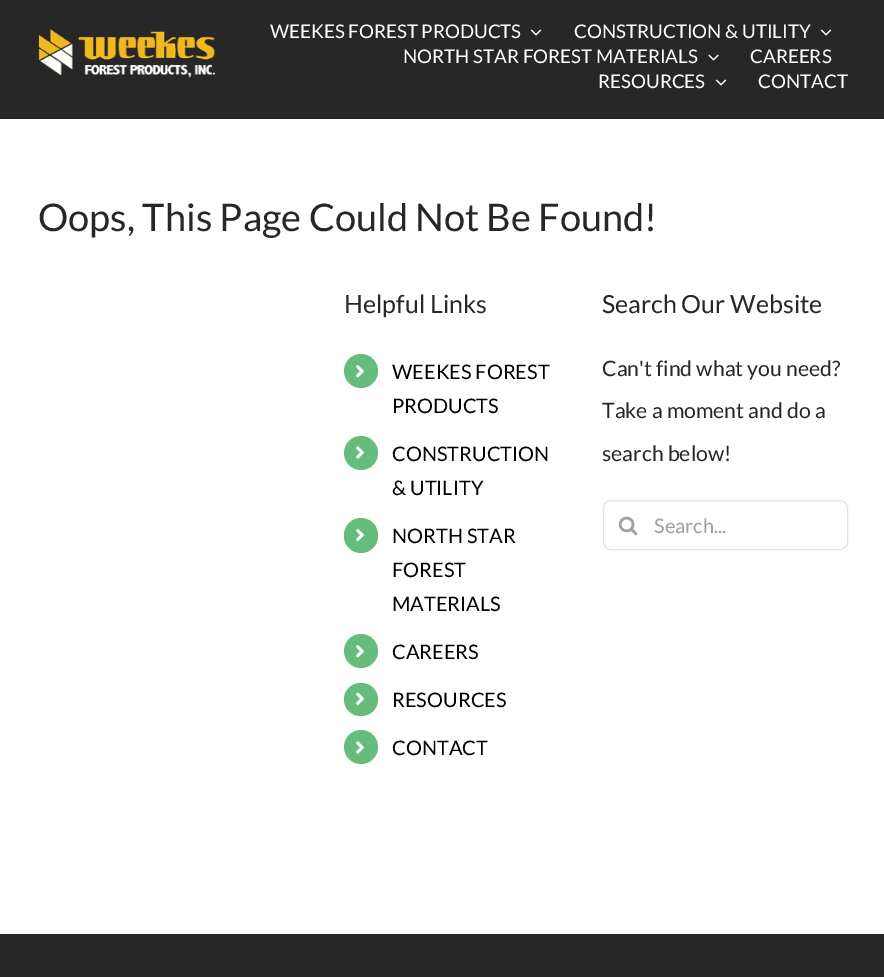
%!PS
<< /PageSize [884 977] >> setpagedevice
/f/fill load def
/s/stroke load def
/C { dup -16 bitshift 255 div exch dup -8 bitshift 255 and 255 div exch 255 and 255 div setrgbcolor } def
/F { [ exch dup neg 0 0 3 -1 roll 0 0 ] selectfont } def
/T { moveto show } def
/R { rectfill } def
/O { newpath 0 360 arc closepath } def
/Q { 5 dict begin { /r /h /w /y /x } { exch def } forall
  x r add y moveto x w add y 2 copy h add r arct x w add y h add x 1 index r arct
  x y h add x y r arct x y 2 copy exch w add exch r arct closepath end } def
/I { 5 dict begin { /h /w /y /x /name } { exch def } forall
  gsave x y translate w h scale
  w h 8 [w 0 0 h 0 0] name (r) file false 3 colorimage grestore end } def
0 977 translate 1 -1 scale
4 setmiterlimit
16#FFFFFF C
0 0 884 977 R
16#272727 C
0 0 884 119 R
(1.rgb) 38 29 177 49 I
/Lato-Regular 18.75 F
16#FFFFFF C
(WEEKES FOREST PRODUCTS) 270 38 T
(2.rgb) 530 29 12 7 I
(CONSTRUCTION & UTILITY) 574 38 T
(2.rgb) 820 29 12 7 I
(NORTH STAR FOREST MATERIALS) 403 63 T
(3.rgb) 708 54 11 7 I
(CAREERS) 750 63 T
(RESOURCES) 598 88 T
(2.rgb) 715 79 12 7 I
(CONTACT) 758 88 T
/Lato-Regular 38 F
16#272727 C
(Oops, This Page Could Not Be Found!) 38 231 T
/Lato-Regular 25 F
(Helpful Links) 344 313 T
16#65BC7B C
361 371 17 O f
(4.rgb) 356 365 8 13 I
/Lato-Regular 20 F
16#000000 C
(WEEKES FOREST) 392 379 T
(PRODUCTS) 392 413 T
16#65BC7B C
361 453 17 O f
(5.rgb) 356 446 8 13 I
16#000000 C
(CONSTRUCTION) 392 461 T
(& UTILITY) 392 495 T
16#65BC7B C
344 518 34 35 17 Q f
(6.rgb) 356 528 8 14 I
16#000000 C
(NORTH STAR) 392 543 T
(FOREST) 392 577 T
(MATERIALS) 392 611 T
16#65BC7B C
361 651 17 O f
(4.rgb) 356 645 8 13 I
16#000000 C
(CAREERS) 392 659 T
16#65BC7B C
344 683 34 33 16.5 Q f
(7.rgb) 356 692 8 13 I
16#000000 C
(RESOURCES) 392 707 T
16#65BC7B C
361 747 17 O f
(5.rgb) 356 741 8 13 I
16#000000 C
(CONTACT) 392 755 T
/Lato-Regular 25 F
16#272727 C
(Search Our Website) 602 313 T
/Lato-Regular 21.25 F
(Can't find what you need?) 602 376 T
(Take a moment and do a) 602 418 T
(search below!) 602 461 T
16#E2E2E2 C
603.5 500.5 244 49 7.5 Q s
(8.rgb) 618 516 20 20 I
/Lato-Regular 20 F
16#9EA0A4 C
(Search...) 654 533 T
16#272727 C
0 934 884 43 R
showpage
